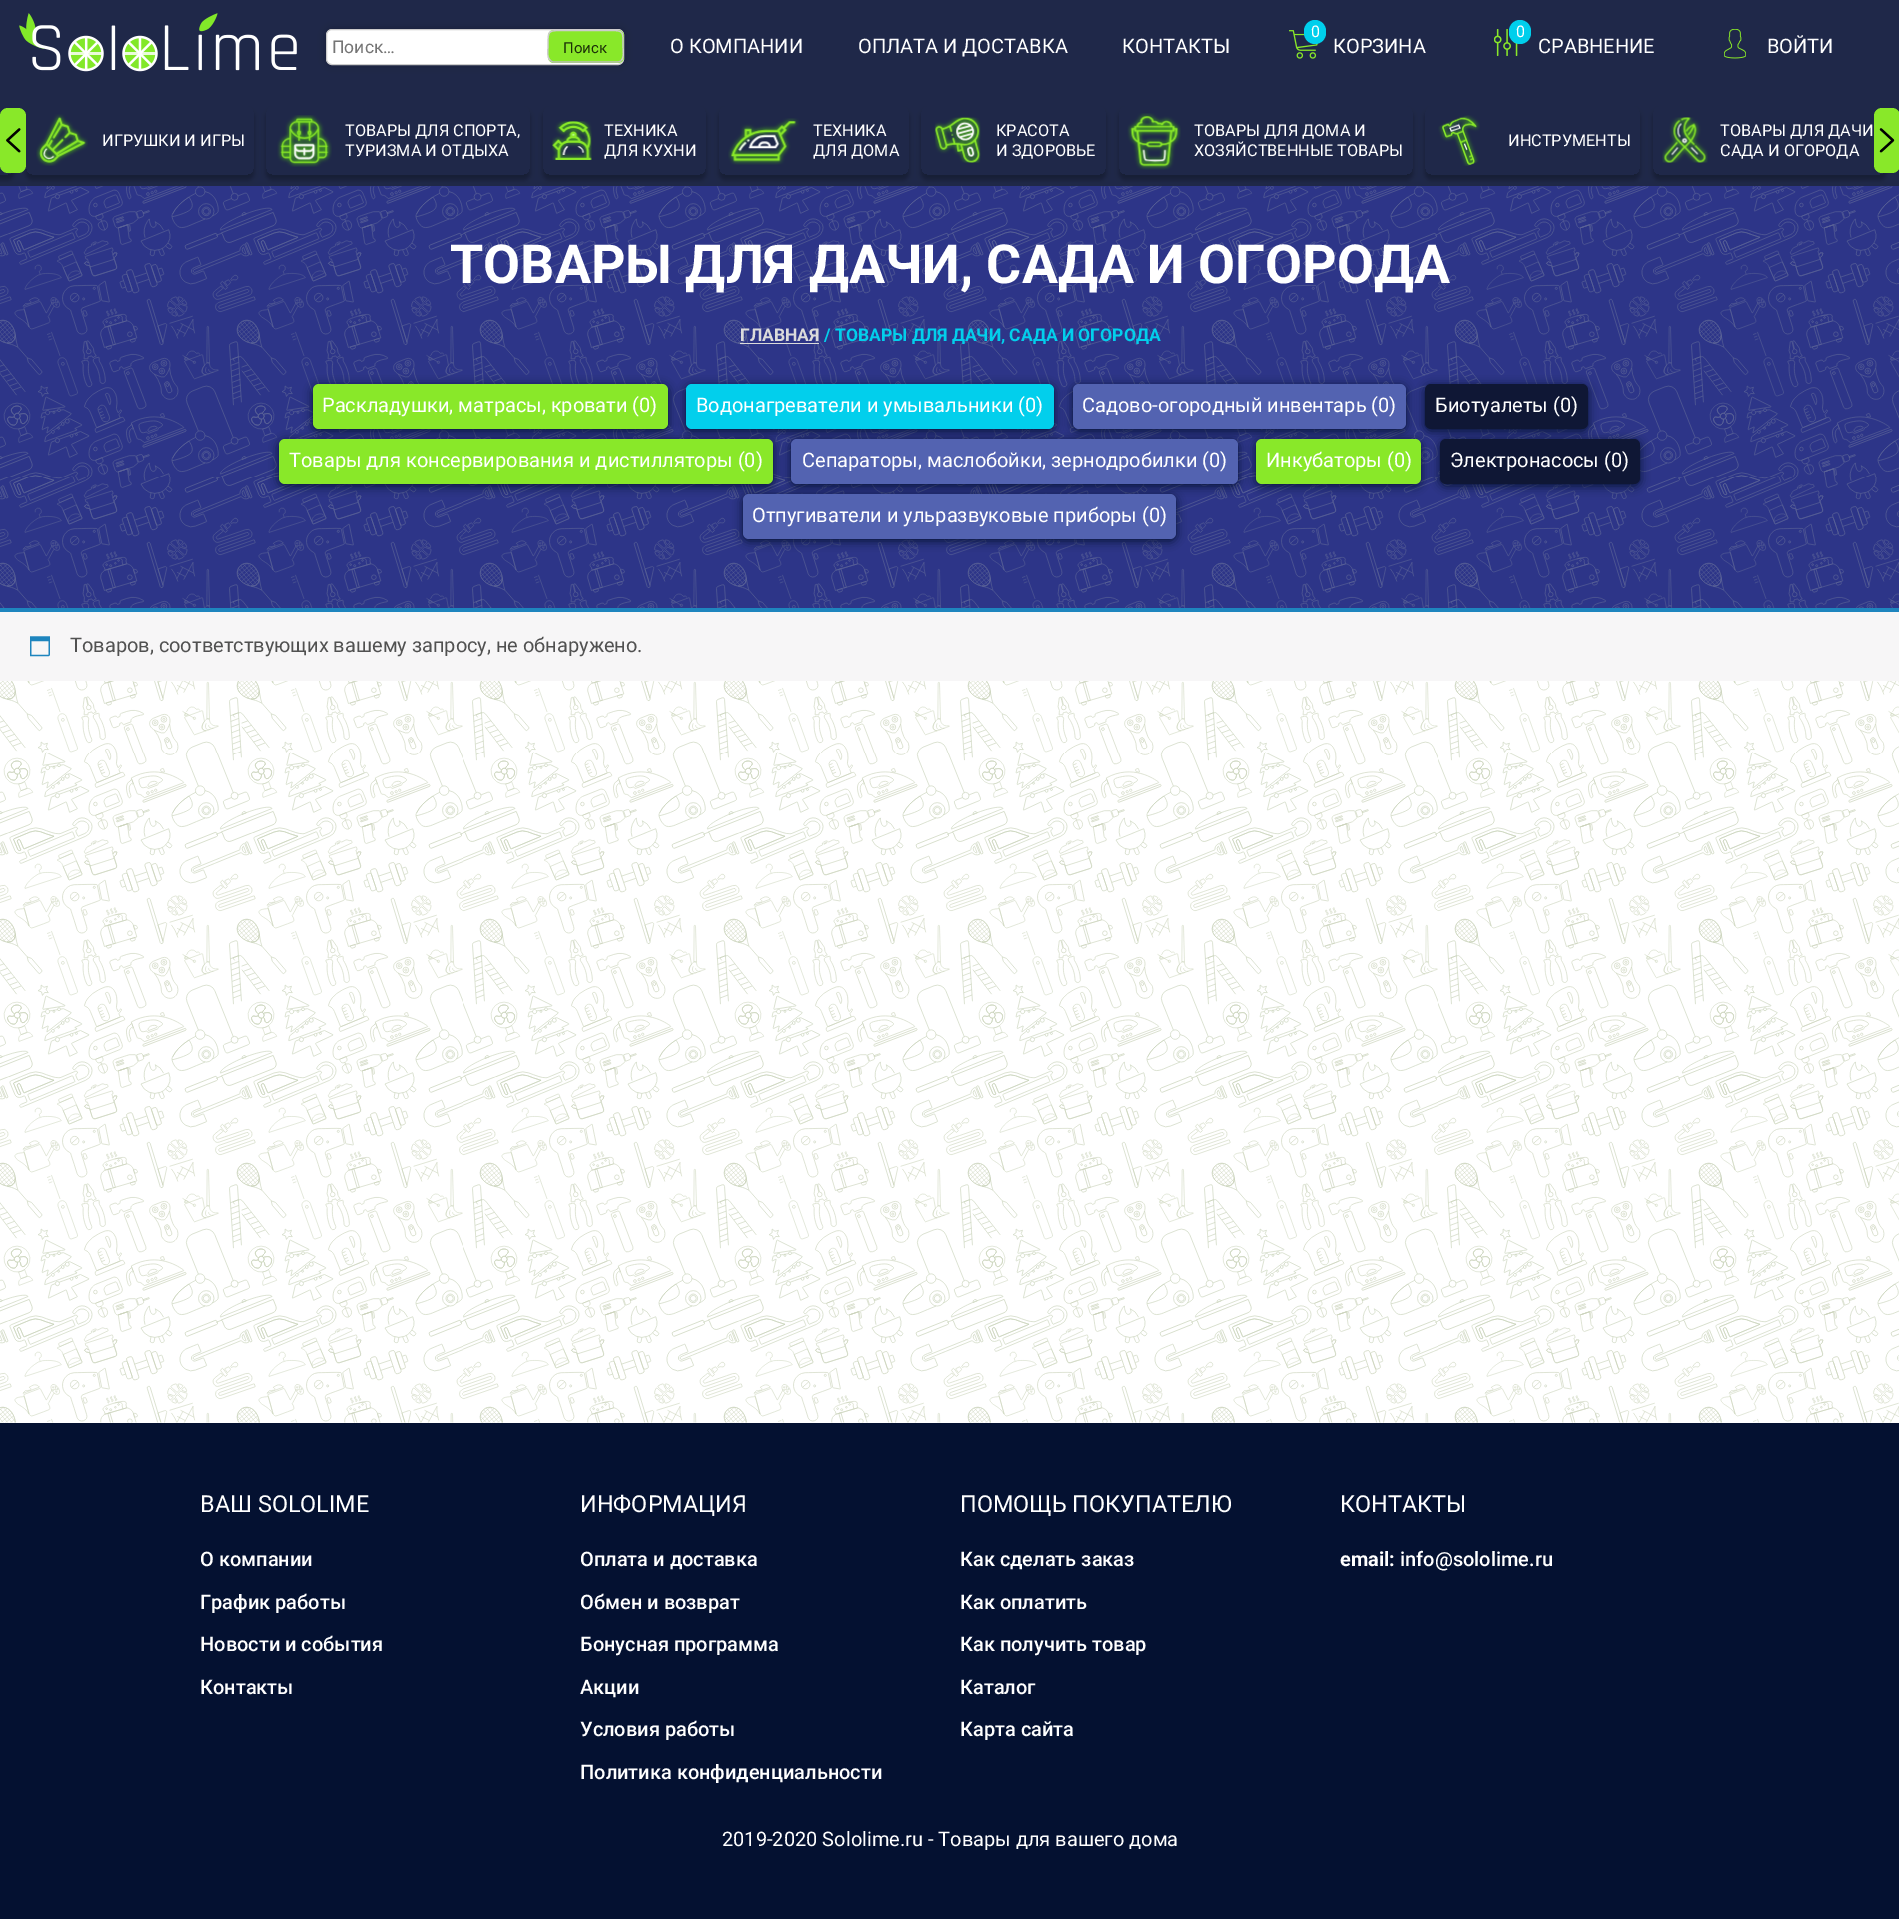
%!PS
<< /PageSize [1899 1919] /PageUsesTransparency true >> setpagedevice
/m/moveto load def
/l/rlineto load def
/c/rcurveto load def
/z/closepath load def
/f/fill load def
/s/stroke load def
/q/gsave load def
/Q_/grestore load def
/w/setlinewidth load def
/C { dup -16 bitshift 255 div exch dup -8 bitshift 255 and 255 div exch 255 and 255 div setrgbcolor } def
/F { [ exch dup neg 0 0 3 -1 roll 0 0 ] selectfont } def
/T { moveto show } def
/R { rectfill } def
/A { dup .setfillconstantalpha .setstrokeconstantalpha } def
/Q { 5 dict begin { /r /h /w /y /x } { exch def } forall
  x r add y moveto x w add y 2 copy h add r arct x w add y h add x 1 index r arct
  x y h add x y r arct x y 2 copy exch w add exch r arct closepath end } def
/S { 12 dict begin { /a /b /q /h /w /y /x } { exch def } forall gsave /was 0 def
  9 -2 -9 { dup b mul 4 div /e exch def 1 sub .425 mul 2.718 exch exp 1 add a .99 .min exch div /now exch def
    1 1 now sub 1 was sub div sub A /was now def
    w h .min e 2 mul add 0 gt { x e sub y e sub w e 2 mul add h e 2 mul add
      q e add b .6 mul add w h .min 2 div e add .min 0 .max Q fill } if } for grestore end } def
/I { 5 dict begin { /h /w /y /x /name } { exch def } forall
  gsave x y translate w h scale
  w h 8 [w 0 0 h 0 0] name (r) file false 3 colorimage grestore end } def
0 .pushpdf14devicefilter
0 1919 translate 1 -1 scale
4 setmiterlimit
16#FFFFFF C
0 0 1899 1919 R
(1.rgb) 0 681 1899 742 I
16#1F2849 C
0 0 1899 186 R
(2.rgb) 19 13 278 59 I
16#000000 C
326 29 298 36 6 4 .25 S
16#FFFFFF C
326.5 29.5 297 35 5.5 Q q f Q_
16#CCCCCC C
s
/Roboto-Regular 17.5 F
16#757575 C
(Поиск…) 332 53 T
16#89E829 C
548 30 76 33 6 Q f
16#BBBBBB C
1.2 w
621.5 60 m -1 1.5 -2.5 2 -4 2 c -63.5 0 l -1.5 0 -3 -.5 -4 -2 c s
16#CCCCCC C
550 60 m -3.5 -3 -2 -10 -2 -14 c 0 -16 -.5 -15.5 16.5 -15.5 c 42.5 0 l 17 0 16 -.5 16 15.5 c 0 4 1.5 11 -1.5 14 c s
/Roboto-Regular 15 F
16#1B2E08 C
(Поиск) 563 53 T
/Roboto-Regular 20 F
16#FFFFFF C
(О КОМПАНИИ) 670 53 T
(ОПЛАТА И ДОСТАВКА) 858 53 T
(КОНТАКТЫ) 1122 53 T
(3.rgb) 1289 30 29 29 I
16#00CFEC C
1304 20 22 24 11 Q f
/Roboto-Regular 16 F
16#FFFFFF C
(0) 1311 37 T
/Roboto-Regular 20 F
(КОРЗИНА) 1333 53 T
(4.rgb) 1494 29 24 27 I
16#00CFEC C
1509 20 22 24 11 Q f
/Roboto-Regular 16 F
16#FFFFFF C
(0) 1516 37 T
/Roboto-Regular 20 F
(СРАВНЕНИЕ) 1538 53 T
(5.rgb) 1724 29 22 30 I
(ВОЙТИ) 1767 53 T
16#2D3588 C
0 186 1899 422 R
(16.rgb) 0 186 1899 422 I
q
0 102 m 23 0 l 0 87 l -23 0 l z -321 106 m 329 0 l 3.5 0 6 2.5 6 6 c 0 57 l 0 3.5 -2.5 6 -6 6 c -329 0 l -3.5 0 -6 -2.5 -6 -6 c 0 -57 l 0 -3.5 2.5 -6 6 -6 c z eoclip newpath
16#000000 C
-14 111 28 69 6 2.5 .25 S
Q_
q
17 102 m 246 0 l 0 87 l -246 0 l z 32 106 m 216 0 l 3.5 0 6 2.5 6 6 c 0 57 l 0 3.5 -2.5 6 -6 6 c -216 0 l -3.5 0 -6 -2.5 -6 -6 c 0 -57 l 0 -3.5 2.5 -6 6 -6 c z eoclip newpath
16#000000 C
26 111 228 69 6 2.5 .25 S
Q_
16#89E829 C
0 108 26 65 8 Q f
(6.rgb) 6 128 15 25 I
q
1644 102 m 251 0 l 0 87 l -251 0 l z 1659 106 m 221 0 l 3.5 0 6 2.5 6 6 c 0 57 l 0 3.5 -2.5 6 -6 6 c -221 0 l -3.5 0 -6 -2.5 -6 -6 c 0 -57 l 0 -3.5 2.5 -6 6 -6 c z eoclip newpath
16#000000 C
1653 111 233 69 6 2.5 .25 S
Q_
1874 108 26 65 8 Q f
(7.rgb) 1879 128 16 25 I
(8.rgb) 36 114 52 52 I
/Roboto-Regular 16.25 F
16#FFFFFF C
(ИГРУШКИ И ИГРЫ) 102 146 T
q
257 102 m 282 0 l 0 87 l -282 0 l z 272 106 m 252 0 l 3.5 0 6 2.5 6 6 c 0 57 l 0 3.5 -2.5 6 -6 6 c -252 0 l -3.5 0 -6 -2.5 -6 -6 c 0 -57 l 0 -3.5 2.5 -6 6 -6 c z eoclip newpath
16#000000 C
266 111 264 69 6 2.5 .25 S
Q_
(9.rgb) 277 115 55 52 I
(ТОВАРЫ ДЛЯ СПОРТА,) 345 136 T
(ТУРИЗМА И ОТДЫХА) 345 156 T
q
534 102 m 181 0 l 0 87 l -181 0 l z 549 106 m 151 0 l 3.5 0 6 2.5 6 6 c 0 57 l 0 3.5 -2.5 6 -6 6 c -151 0 l -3.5 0 -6 -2.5 -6 -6 c 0 -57 l 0 -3.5 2.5 -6 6 -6 c z eoclip newpath
16#000000 C
543 111 163 69 6 2.5 .25 S
Q_
(10.rgb) 552 121 40 39 I
(ТЕХНИКА) 604 136 T
(ДЛЯ КУХНИ) 604 156 T
q
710 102 m 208 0 l 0 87 l -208 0 l z 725 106 m 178 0 l 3.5 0 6 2.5 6 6 c 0 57 l 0 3.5 -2.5 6 -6 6 c -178 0 l -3.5 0 -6 -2.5 -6 -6 c 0 -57 l 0 -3.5 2.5 -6 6 -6 c z eoclip newpath
16#000000 C
719 111 190 69 6 2.5 .25 S
Q_
(11.rgb) 728 118 71 47 I
(ТЕХНИКА) 813 136 T
(ДЛЯ ДОМА) 813 156 T
q
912 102 m 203 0 l 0 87 l -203 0 l z 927 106 m 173 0 l 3.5 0 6 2.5 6 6 c 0 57 l 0 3.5 -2.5 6 -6 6 c -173 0 l -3.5 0 -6 -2.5 -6 -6 c 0 -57 l 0 -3.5 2.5 -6 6 -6 c z eoclip newpath
16#000000 C
921 111 185 69 6 2.5 .25 S
Q_
(12.rgb) 934 116 47 47 I
(КРАСОТА) 996 136 T
(И ЗДОРОВЬЕ) 996 156 T
q
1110 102 m 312 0 l 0 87 l -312 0 l z 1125 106 m 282 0 l 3.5 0 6 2.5 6 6 c 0 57 l 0 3.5 -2.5 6 -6 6 c -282 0 l -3.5 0 -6 -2.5 -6 -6 c 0 -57 l 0 -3.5 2.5 -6 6 -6 c z eoclip newpath
16#000000 C
1119 111 294 69 6 2.5 .25 S
Q_
(13.rgb) 1127 113 54 57 I
(ТОВАРЫ ДЛЯ ДОМА И) 1194 136 T
(ХОЗЯЙСТВЕННЫЕ ТОВАРЫ) 1194 156 T
q
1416 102 m 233 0 l 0 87 l -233 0 l z 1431 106 m 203 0 l 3.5 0 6 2.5 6 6 c 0 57 l 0 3.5 -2.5 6 -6 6 c -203 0 l -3.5 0 -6 -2.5 -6 -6 c 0 -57 l 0 -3.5 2.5 -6 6 -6 c z eoclip newpath
16#000000 C
1425 111 215 69 6 2.5 .25 S
Q_
(14.rgb) 1438 115 42 51 I
(ИНСТРУМЕНТЫ) 1508 146 T
(15.rgb) 1662 117 46 46 I
(ТОВАРЫ ДЛЯ ДАЧИ) 1720 136 T
(САДА И ОГОРОДА) 1720 156 T
/Roboto-Bold 53.75 F
(ТОВАРЫ ДЛЯ ДАЧИ, САДА И ОГОРОДА) 450 283 T
/Roboto-Bold 17.5 F
16#DBDBDB C
(ГЛАВНАЯ) 740 341 T
740 343 79 1 R
16#02CFEC C
(/ ТОВАРЫ ДЛЯ ДАЧИ, САДА И ОГОРОДА) 824 341 T
16#041131 C
313 386 355 45 6 5 1 S
16#89E829 C
313 384 355 45 6 Q f
/Roboto-Regular 20 F
16#FFFFFF C
(Раскладушки, матрасы, кровати \(0\)) 322 412 T
16#041131 C
686 386 368 45 6 5 1 S
16#02CFEC C
686 384 368 45 6 Q f
16#FFFFFF C
(Водонагреватели и умывальники \(0\)) 696 412 T
16#041131 C
1073 386 333 45 6 5 1 S
16#5363B1 C
1073 384 333 45 6 Q f
16#FFFFFF C
(Садово-огородный инвентарь \(0\)) 1082 412 T
16#041131 C
1425 386 163 45 6 5 1 S
16#0F1735 C
1425 384 163 45 6 Q f
16#FFFFFF C
(Биотуалеты \(0\)) 1435 412 T
16#041131 C
279 441 494 45 6 5 1 S
16#89E829 C
279 439 494 45 6 Q f
16#FFFFFF C
(Товары для консервирования и дистилляторы \(0\)) 289 467 T
16#041131 C
791 441 447 45 6 5 1 S
16#5363B1 C
791 439 447 45 6 Q f
16#FFFFFF C
(Сепараторы, маслобойки, зернодробилки \(0\)) 802 467 T
16#041131 C
1256 441 165 45 6 5 1 S
16#89E829 C
1256 439 165 45 6 Q f
16#FFFFFF C
(Инкубаторы \(0\)) 1266 467 T
16#041131 C
1440 441 200 45 6 5 1 S
16#0F1735 C
1440 439 200 45 6 Q f
16#FFFFFF C
(Электронасосы \(0\)) 1450 467 T
16#041131 C
743 496 433 45 6 5 1 S
16#5363B1 C
743 494 433 45 6 Q f
16#FFFFFF C
(Отпугиватели и ульразвуковые приборы \(0\)) 752 522 T
16#F7F6F7 C
0 612 1899 69 R
16#1E85BE C
0 608 1899 4 R
(17.rgb) 30 636 20 21 I
16#515151 C
(Товаров, соответствующих вашему запросу, не обнаружено.) 70 652 T
16#041131 C
0 1423 1899 496 R
/Roboto-Regular 23.4 F
16#FFFFFF C
(ВАШ SOLOLIME) 200 1512 T
/Roboto-Medium 20 F
(О компании) 200 1566 T
(График работы) 200 1609 T
(Новости и события) 200 1651 T
(Контакты) 200 1694 T
/Roboto-Regular 23.4 F
(ИНФОРМАЦИЯ) 580 1512 T
/Roboto-Medium 20 F
(Оплата и доставка) 580 1566 T
(Обмен и возврат) 580 1609 T
(Бонусная программа) 580 1651 T
(Акции) 580 1694 T
(Условия работы) 580 1736 T
(Политика конфиденциальности) 580 1779 T
/Roboto-Regular 23.4 F
(ПОМОЩЬ ПОКУПАТЕЛЮ) 960 1512 T
/Roboto-Medium 20 F
(Как сделать заказ) 960 1566 T
(Как оплатить) 960 1609 T
(Как получить товар) 960 1651 T
(Каталог) 960 1694 T
(Карта сайта) 960 1736 T
/Roboto-Regular 23.4 F
(КОНТАКТЫ) 1340 1512 T
/Roboto-Bold 20 F
(email:) 1340 1566 T
/Roboto-Medium 20 F
(info@sololime.ru) 1400 1566 T
/Roboto-Regular 20 F
(2019-2020 Sololime.ru - Товары для вашего дома) 722 1846 T
.poppdf14devicefilter showpage
